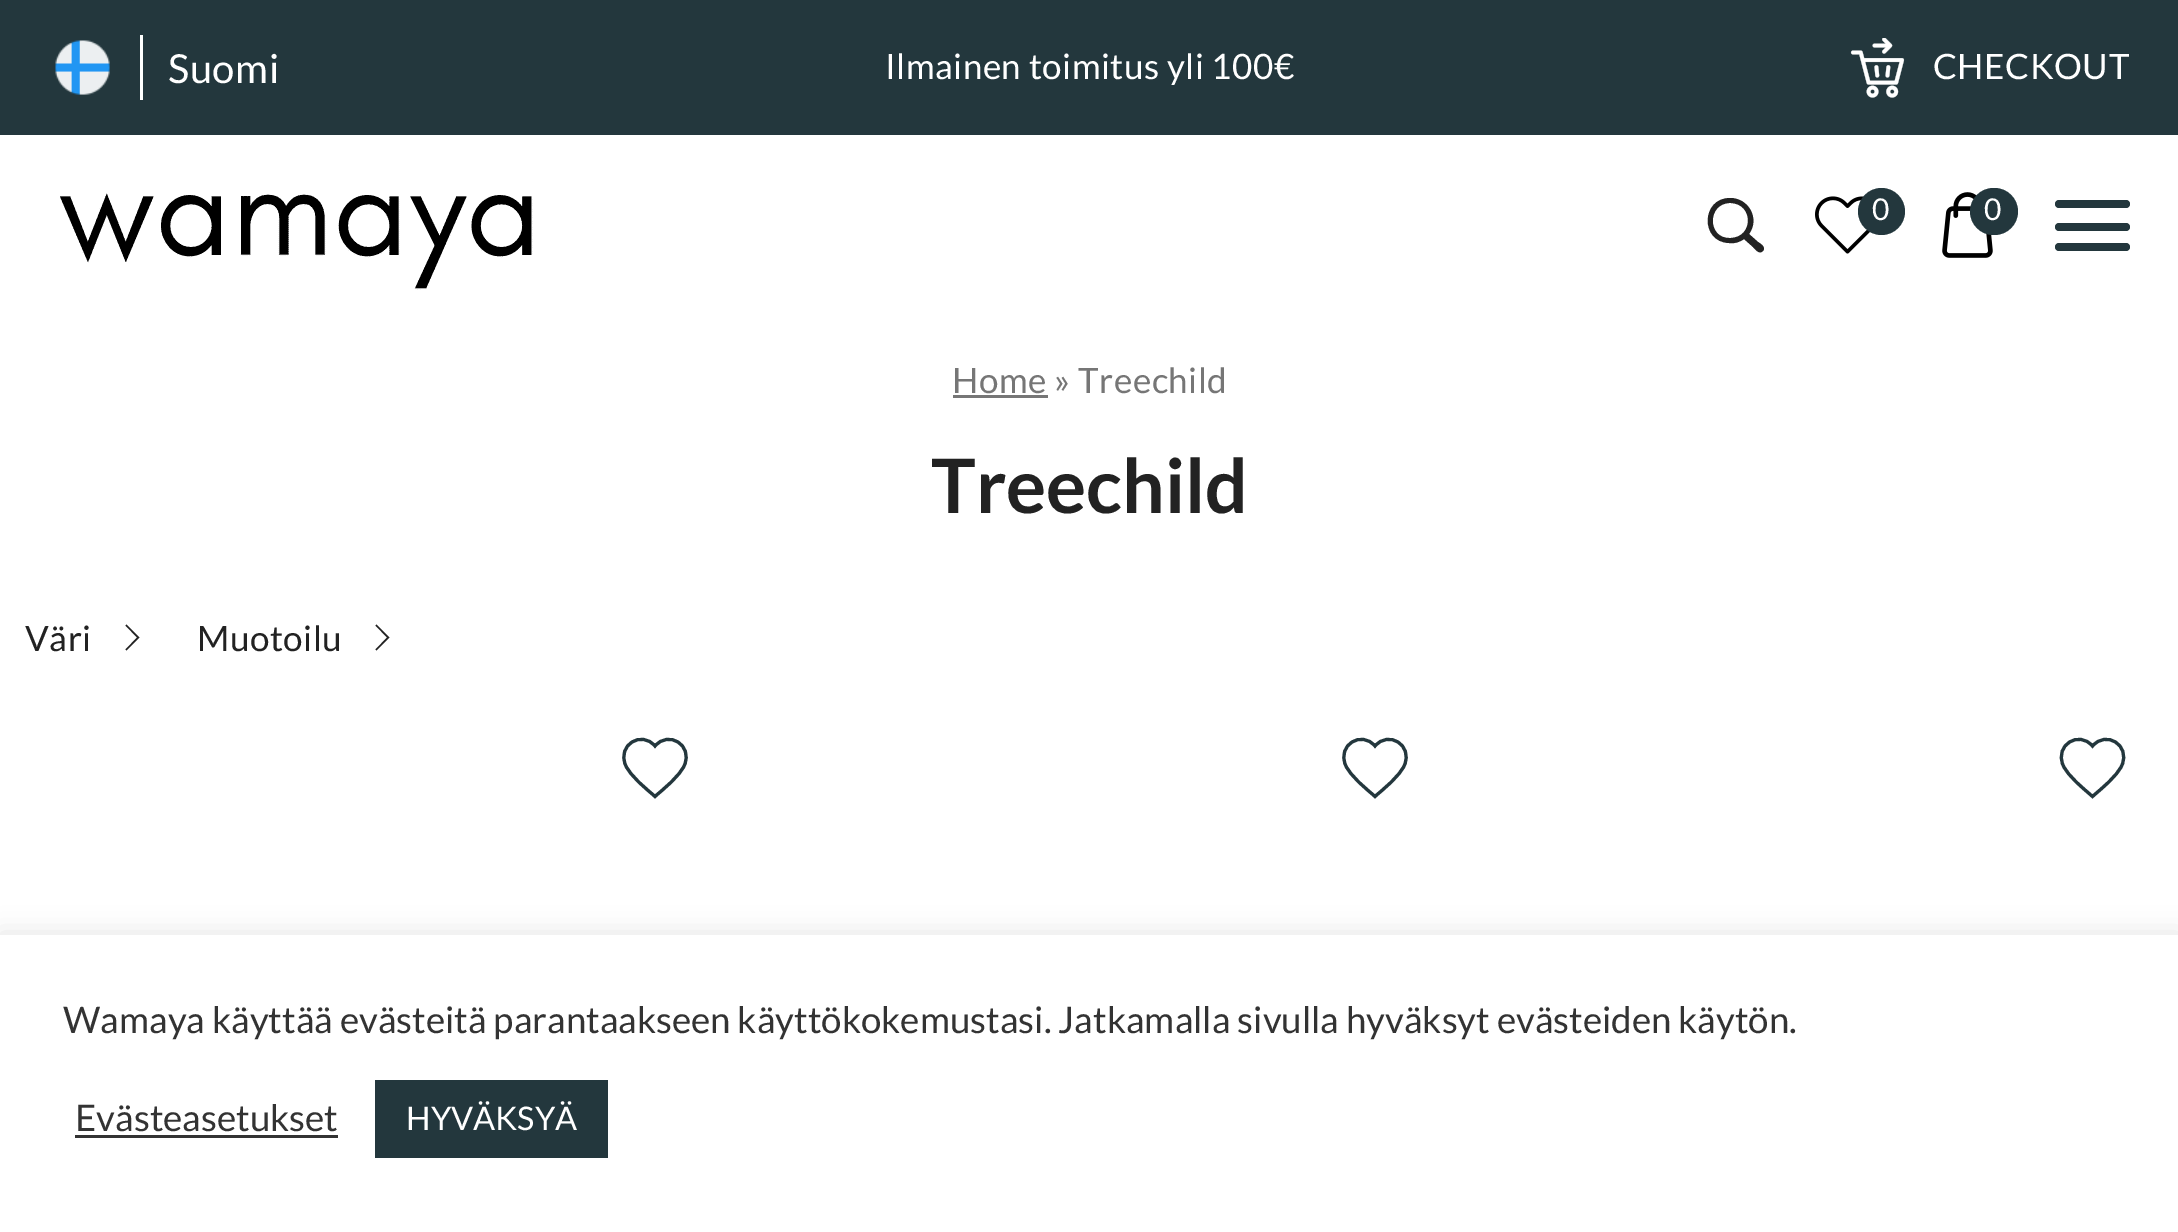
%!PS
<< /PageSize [2178 1232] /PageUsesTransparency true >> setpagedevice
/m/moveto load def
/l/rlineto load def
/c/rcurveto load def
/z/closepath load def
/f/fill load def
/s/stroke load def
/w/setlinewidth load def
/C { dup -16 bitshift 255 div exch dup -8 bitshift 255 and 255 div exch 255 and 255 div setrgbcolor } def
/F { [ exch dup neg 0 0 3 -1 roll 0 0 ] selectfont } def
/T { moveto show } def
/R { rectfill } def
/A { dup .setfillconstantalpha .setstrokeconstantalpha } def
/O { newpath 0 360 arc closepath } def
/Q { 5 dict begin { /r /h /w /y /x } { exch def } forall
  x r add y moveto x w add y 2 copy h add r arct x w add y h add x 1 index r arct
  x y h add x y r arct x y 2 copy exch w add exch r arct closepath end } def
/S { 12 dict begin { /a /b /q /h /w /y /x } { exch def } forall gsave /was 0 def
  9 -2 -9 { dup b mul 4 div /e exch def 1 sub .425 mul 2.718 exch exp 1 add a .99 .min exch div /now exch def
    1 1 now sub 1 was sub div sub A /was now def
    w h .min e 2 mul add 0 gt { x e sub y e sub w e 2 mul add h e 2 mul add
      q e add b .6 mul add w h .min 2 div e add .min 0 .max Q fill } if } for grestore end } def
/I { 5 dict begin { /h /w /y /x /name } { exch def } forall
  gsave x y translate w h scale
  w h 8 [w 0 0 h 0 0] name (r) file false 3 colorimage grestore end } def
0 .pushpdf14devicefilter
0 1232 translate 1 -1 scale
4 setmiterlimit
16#FFFFFF C
0 0 2178 1232 R
16#23373D C
0 0 2178 135 R
(1.rgb) 55 40 55 55 I
16#FFFFFF C
140 35 3 65 R
/Lato-Regular 40 F
168 83 m .5 0 (Suomi) ashow
/Lato-Regular 35 F
885 79 m .5 0 (Ilmainen toimitus yli 100€) ashow
(2.rgb) 1850 38 55 60 I
1933 79 m .5 0 (CHECKOUT) ashow
(3.rgb) 60 193 473 97 I
16#222222 C
1730 198 m 19 0 30 21 19 36 c 9 8 l 3 2 8 5 5 9 c -4 4 -8 -2 -10 -4 c -9 -8 l -4 3 -10 5 -15 4 c -29 -1 -28 -45 1 -45 c z 1730 203 m -23 0 -23 36 0 35 c 24 0 24 -35 0 -35 c z f
(4.rgb) 1815 196 55 58 I
16#23373D C
1881.5 211.5 23.5 O f
/Lato-Regular 30 F
16#FFFFFF C
(0) 1872 220 T
(5.rgb) 1942 192 51 66 I
16#23373D C
1970 188 48 47 23.5 Q f
16#FFFFFF C
(0) 1984 220 T
16#23373D C
2055 200 75 8 4 Q f
2055 223 75 8 4 Q f
2055 243 75 8 4 Q f
/Lato-Regular 35 F
16#767676 C
952 393 m .5 0 (Home » Treechild) ashow
953 395 95 3 R
/Lato-Bold 75 F
16#222222 C
(Treechild) 931 513 T
/Lato-Regular 35 F
25 651 m .5 0 (Väri) ashow
126.5 650.5 m -1 -1 l 11.5 -12 l -11.5 -12 l 1 -1 l 13 13 l z f
197 651 m .5 0 (Muotoilu) ashow
376.5 650.5 m -1 -1 l 11.5 -12 l -11.5 -12 l 1 -1 l 13 13 l z f
16#23373D C
3.1 w
655 796.5 m -9.5 -8.5 -24 -19.5 -29.5 -31.5 c -8.5 -20 16 -35 29.5 -19 c 13.5 -16 38 -1 29.5 19 c -5.5 12 -20 23 -29.5 31.5 c z s
1375 796.5 m -9.5 -8.5 -24 -19.5 -29.5 -31.5 c -8.5 -20 16 -35 29.5 -19 c 13.5 -16 38 -1 29.5 19 c -5.5 12 -20 23 -29.5 31.5 c z s
2092.5 796.5 m -9.5 -8.5 -24 -19.5 -29.5 -31.5 c -8.5 -20 16 -35 29.5 -19 c 13.5 -16 38 -1 29.5 19 c -5.5 12 -20 23 -29.5 31.5 c z s
16#ACABAB C
0 933 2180 297 0 12.5 .3 S
16#FFFFFF C
0 935 2178 297 R
/Lato-Regular 36.65 F
16#333333 C
63 1033 m -.25 0 32 (Wamaya käyttää evästeitä parantaakseen käyttökokemustasi. Jatkamalla sivulla hyväksyt evästeiden käytön.) widthshow
(Evästeasetukset) 75 1131 T
75 1135 263 3 R
16#23373D C
375 1080 233 78 R
/Lato-Regular 32.5 F
16#FFFFFF C
(HYVÄKSYÄ) 406 1130 T
.poppdf14devicefilter showpage
